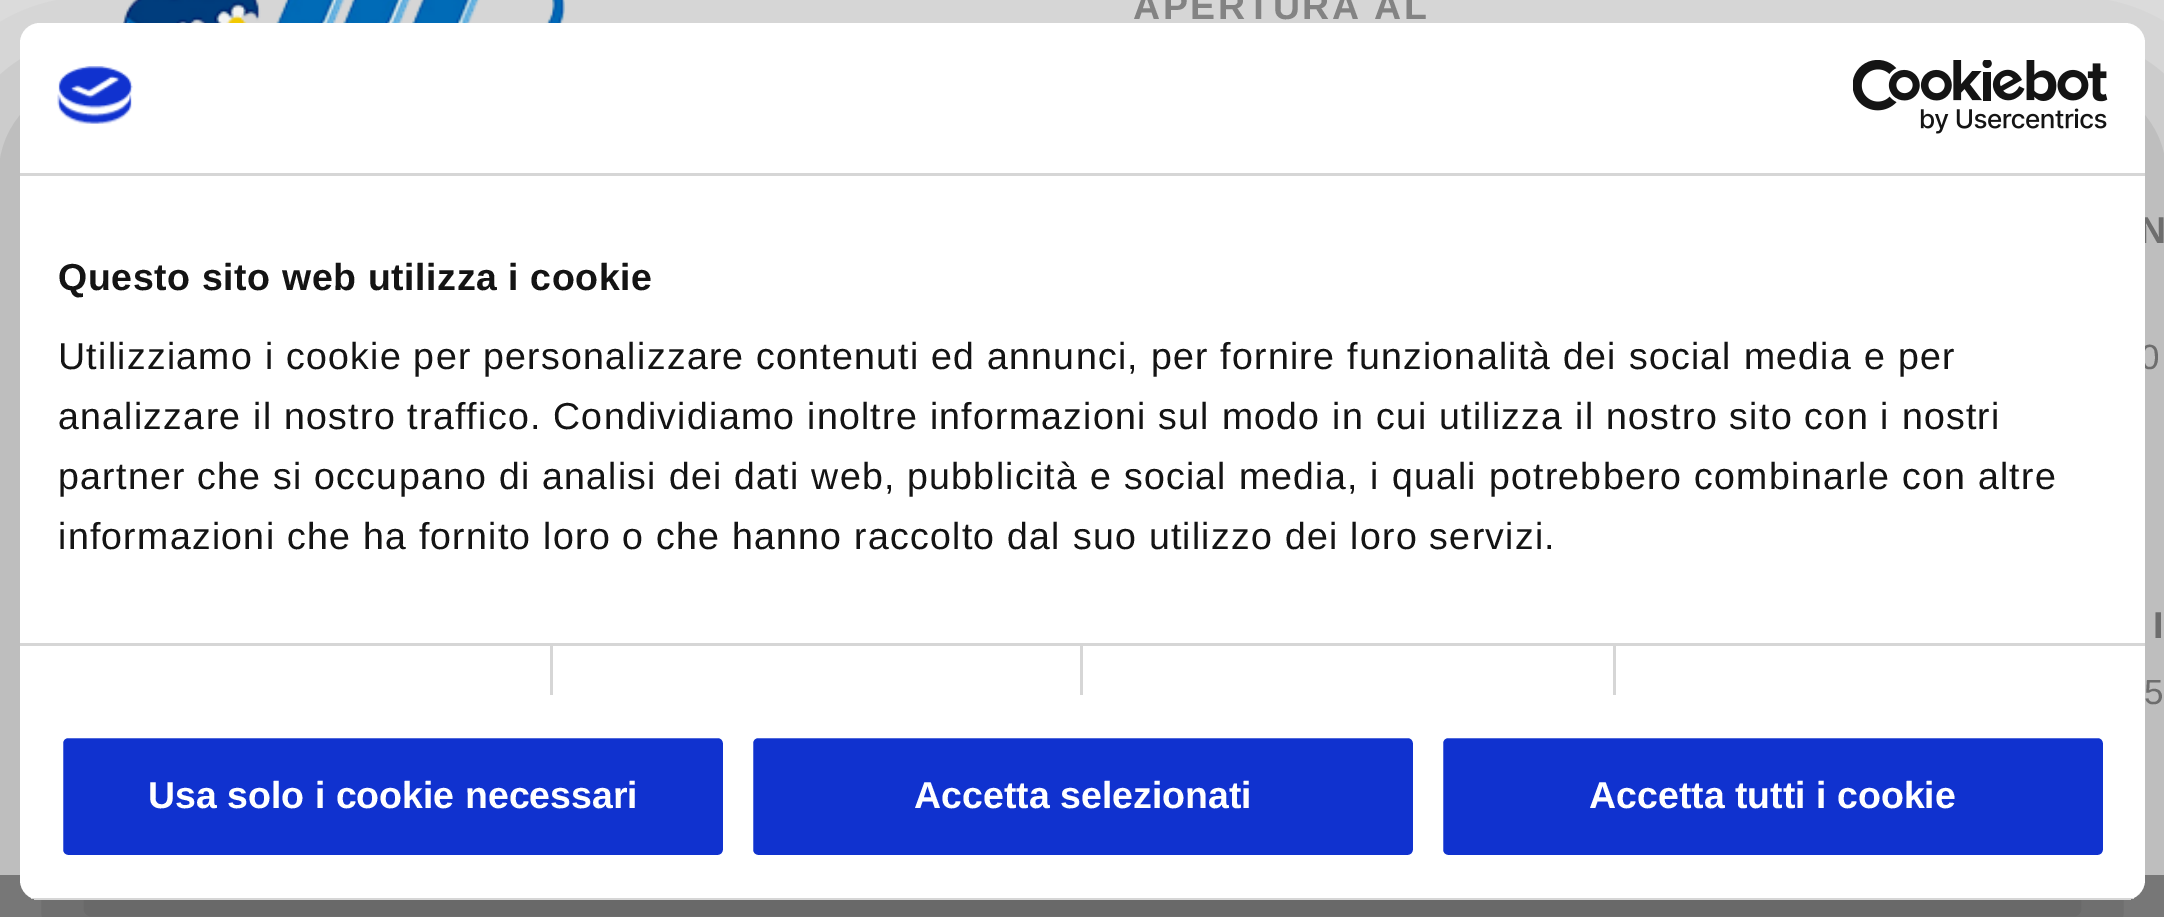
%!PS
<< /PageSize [2164 917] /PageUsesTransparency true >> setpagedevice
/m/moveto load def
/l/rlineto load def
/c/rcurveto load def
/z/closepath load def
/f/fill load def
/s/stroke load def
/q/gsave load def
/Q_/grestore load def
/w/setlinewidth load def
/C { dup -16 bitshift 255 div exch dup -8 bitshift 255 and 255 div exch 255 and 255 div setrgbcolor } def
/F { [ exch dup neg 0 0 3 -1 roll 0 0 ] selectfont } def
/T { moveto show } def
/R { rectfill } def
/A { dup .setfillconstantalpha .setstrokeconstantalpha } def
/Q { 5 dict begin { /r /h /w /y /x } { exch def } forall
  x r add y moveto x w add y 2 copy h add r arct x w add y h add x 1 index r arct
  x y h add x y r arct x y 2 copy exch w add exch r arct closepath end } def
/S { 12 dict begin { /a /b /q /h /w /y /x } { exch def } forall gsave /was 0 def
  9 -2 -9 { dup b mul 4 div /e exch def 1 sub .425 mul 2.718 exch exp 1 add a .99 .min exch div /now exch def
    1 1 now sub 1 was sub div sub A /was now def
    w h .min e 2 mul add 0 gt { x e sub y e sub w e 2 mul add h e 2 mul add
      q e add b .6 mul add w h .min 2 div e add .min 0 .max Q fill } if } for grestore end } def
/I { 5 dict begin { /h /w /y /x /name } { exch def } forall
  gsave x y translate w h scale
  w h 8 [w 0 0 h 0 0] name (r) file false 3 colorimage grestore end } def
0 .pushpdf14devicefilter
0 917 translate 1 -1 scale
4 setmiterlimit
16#8C8C8C C
0 0 2164 917 R
16#E0E0E0 C
0 0 2164 875 R
(1.rgb) 123 0 442 23 I
/LiberationSans-Bold 37.5 F
16#898989 C
1133 19 m 2.5 0 (APERTURA AL) ashow
16#818181 C
2139 243 m 2.5 0 (N) ashow
/LiberationSans-Regular 35 F
(0) 2140 369 T
/LiberationSans-Bold 37.5 F
2153 638 m 2.5 0 (I) ashow
/LiberationSans-Regular 35 F
(5) 2144 704 T
q
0 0 m 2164 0 l 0 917 l -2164 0 l z 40 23 m 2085 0 l 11 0 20 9 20 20 c 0 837 l 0 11 -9 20 -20 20 c -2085 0 l -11 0 -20 -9 -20 -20 c 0 -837 l 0 -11 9 -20 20 -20 c z eoclip newpath
16#000000 C
20 103 2125 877 20 85 .3 S
Q_
16#FFFFFF C
20 23 2125 877 20 Q f
16#D6D6D6 C
20 173 2125 3 R
(2.rgb) 57 66 76 58 I
(3.rgb) 1853 60 255 74 I
550 645 3 50 R
1080 645 3 50 R
1613 645 3 50 R
20 643 2125 3 R
/LiberationSans-Bold 37.5 F
16#141414 C
58 290 m .6 0 (Questo sito web utilizza i cookie) ashow
/LiberationSans-Regular 37.5 F
58 369 m 1.25 0 (Utilizziamo i cookie per personalizzare contenuti ed annunci, per fornire funzionalità dei social media e per) ashow
58 429 m 1.25 0 (analizzare il nostro traffico. Condividiamo inoltre informazioni sul modo in cui utilizza il nostro sito con i nostri) ashow
58 489 m 1.25 0 (partner che si occupano di analisi dei dati web, pubblicità e social media, i quali potrebbero combinarle con altre) ashow
58 549 m 1.25 0 (informazioni che ha fornito loro o che hanno raccolto dal suo utilizzo dei loro servizi.) ashow
q
20 23 2125 877 20 Q clip newpath
16#D6D6D6 C
31 898 2103 2 R
Q_
16#1032CF C
60.5 735.5 665 122 7.5 Q q f Q_
16#FFFFFF C
5 w
s
/LiberationSans-Bold 37.5 F
(Usa solo i cookie necessari) 148 808 T
16#1032CF C
750.5 735.5 665 122 7.5 Q q f Q_
16#FFFFFF C
s
(Accetta selezionati) 914 808 T
16#1032CF C
1440.5 735.5 665 122 7.5 Q q f Q_
16#FFFFFF C
s
(Accetta tutti i cookie) 1589 808 T
.poppdf14devicefilter showpage
